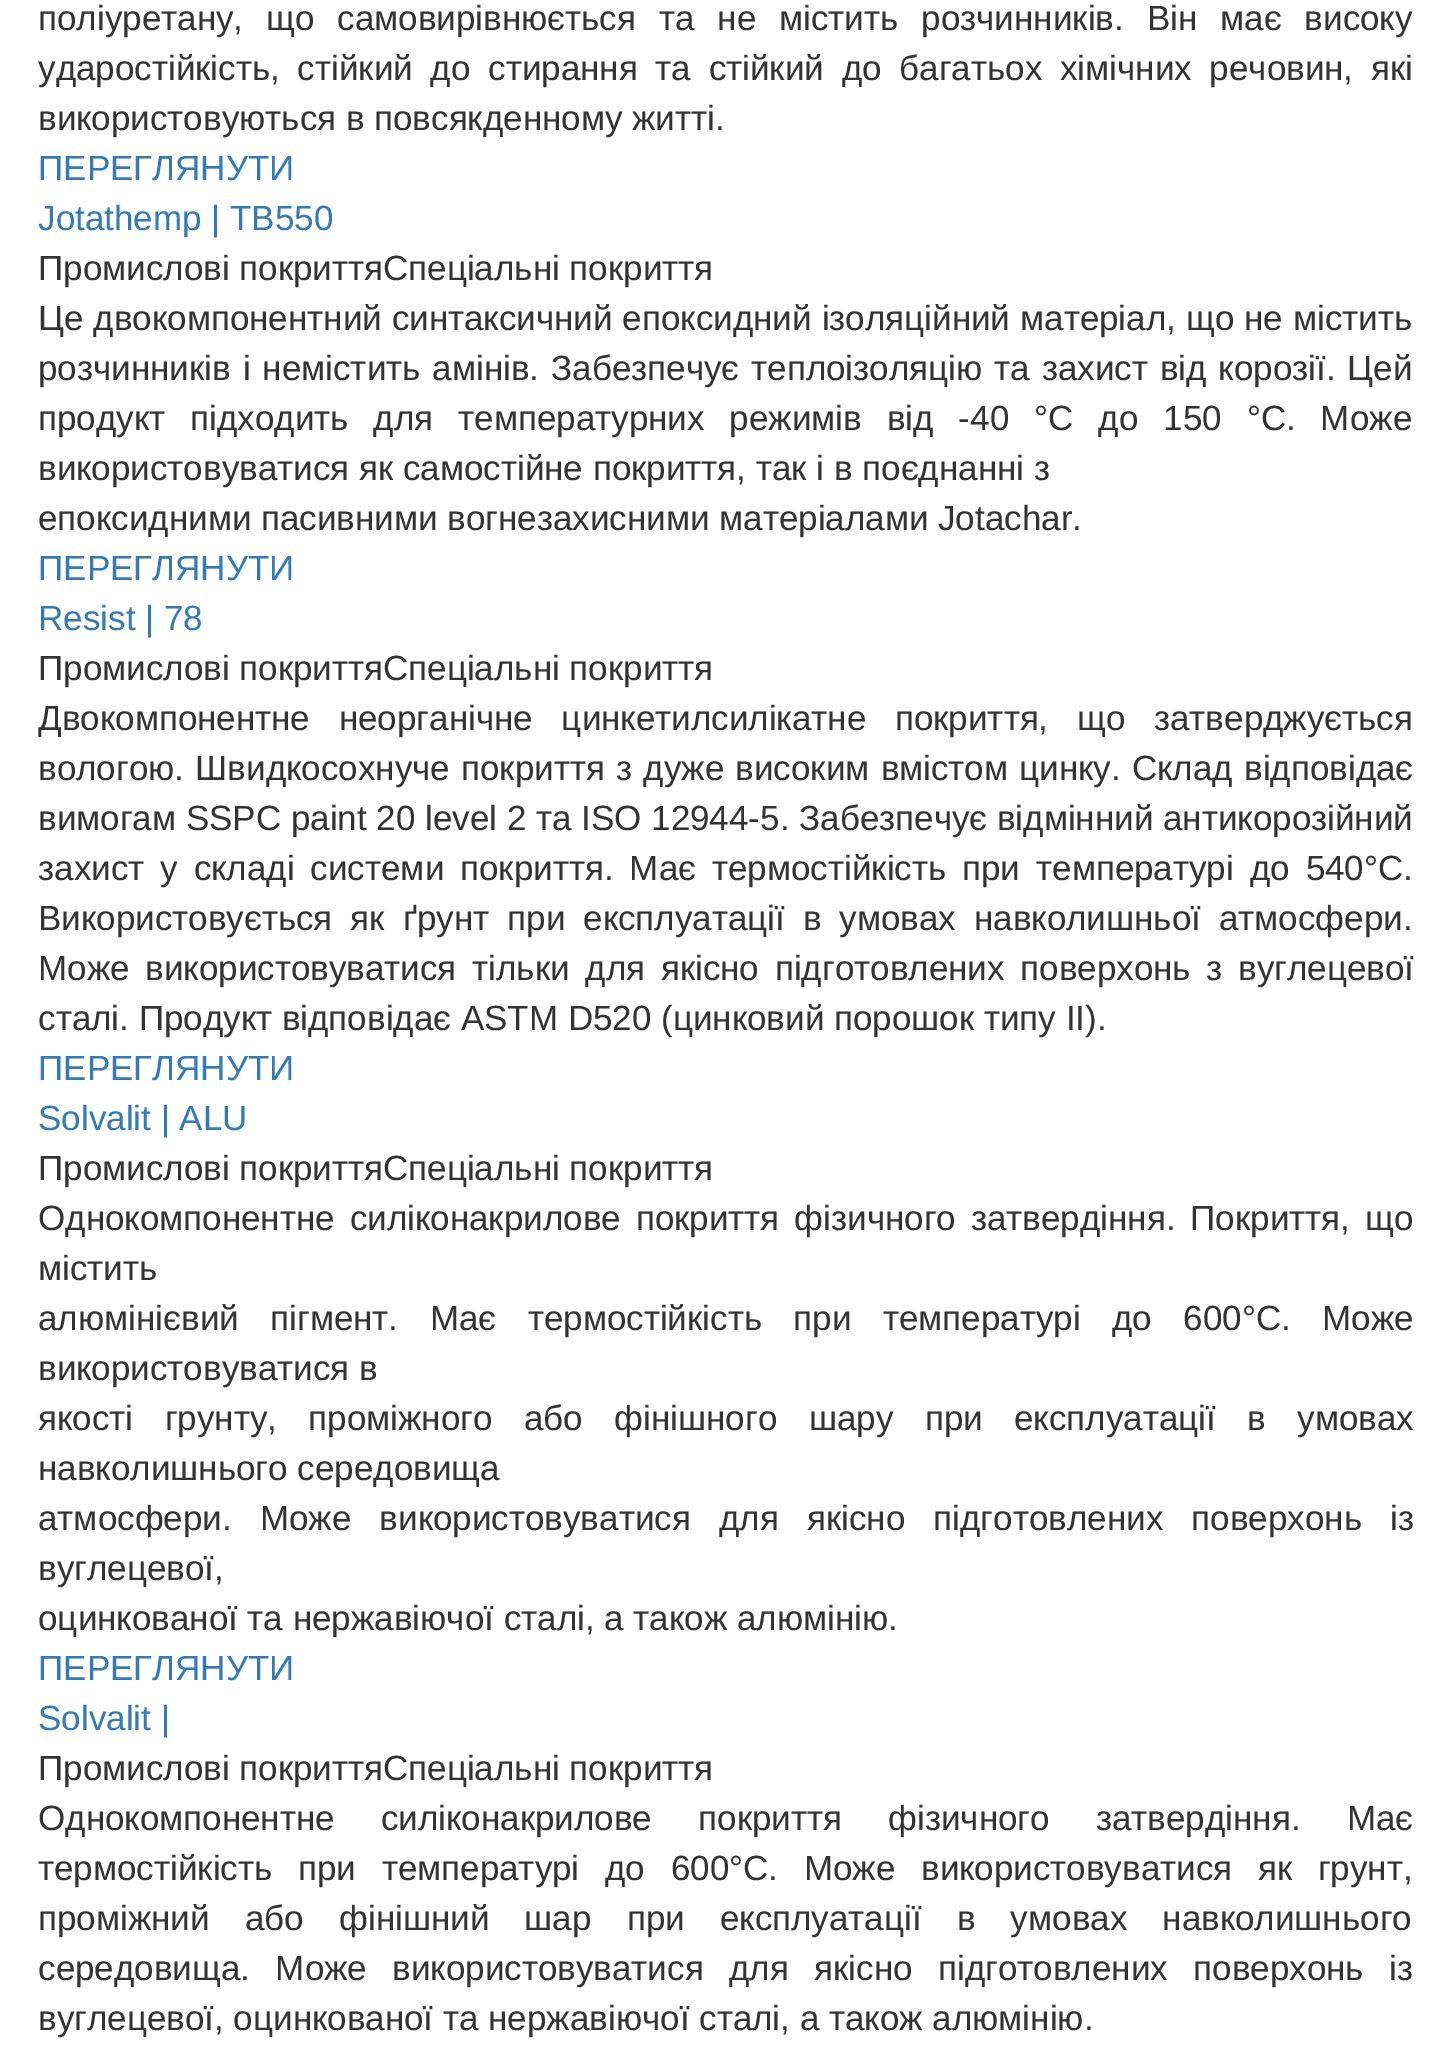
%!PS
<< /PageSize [1450 2058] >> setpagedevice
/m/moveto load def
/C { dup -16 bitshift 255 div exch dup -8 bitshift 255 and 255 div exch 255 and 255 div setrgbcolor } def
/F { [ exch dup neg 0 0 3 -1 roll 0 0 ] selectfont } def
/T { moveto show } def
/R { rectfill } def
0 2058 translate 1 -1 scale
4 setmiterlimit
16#FFFFFF C
0 0 1450 2058 R
/LiberationSans-Regular 35 F
16#333333 C
38 30 m 13.25 0 32 (поліуретану, що самовирівнюється та не містить розчинників. Він має високу) widthshow
38 80 m 8 0 32 (ударостійкість, стійкий до стирання та стійкий до багатьох хімічних речовин, які) widthshow
(використовуються в повсякденному житті.) 38 130 T
16#337AB7 C
(ПЕРЕГЛЯНУТИ) 38 180 T
(Jotathemp | TB550) 38 230 T
16#333333 C
(Промислові покриттяCпеціальні покриття) 38 280 T
38 330 m .25 0 32 (Це двокомпонентний синтаксичний епоксидний ізоляційний матеріал, що не містить) widthshow
38 380 m 2.25 0 32 (розчинників і немістить амінів. Забезпечує теплоізоляцію та захист від корозії. Цей) widthshow
38 430 m 15.25 0 32 (продукт підходить для температурних режимів від -40 °C до 150 °C. Може) widthshow
(використовуватися як самостійне покриття, так і в поєднанні з) 38 480 T
(епоксидними пасивними вогнезахисними матеріалами Jotachar.) 38 530 T
16#337AB7 C
(ПЕРЕГЛЯНУТИ) 38 580 T
(Resist | 78) 38 630 T
16#333333 C
(Промислові покриттяCпеціальні покриття) 38 680 T
38 730 m 19 0 32 (Двокомпонентне неорганічне цинкетилсилікатне покриття, що затверджується) widthshow
38 780 m 1.5 0 32 (вологою. Швидкосохнуче покриття з дуже високим вмістом цинку. Склад відповідає) widthshow
(вимогам SSPC paint 20 level 2 та ISO 12944-5. Забезпечує відмінний антикорозійний) 38 830 T
38 880 m 6.25 0 32 (захист у складі системи покриття. Має термостійкість при температурі до 540°C.) widthshow
38 930 m 8.25 0 32 (Використовується як ґрунт при експлуатації в умовах навколишньої атмосфери.) widthshow
38 980 m 6 0 32 (Може використовуватися тільки для якісно підготовлених поверхонь з вуглецевої) widthshow
(сталі. Продукт відповідає ASTM D520 \(цинковий порошок типу II\).) 38 1030 T
16#337AB7 C
(ПЕРЕГЛЯНУТИ) 38 1080 T
(Solvalit | ALU) 38 1130 T
16#333333 C
(Промислові покриттяCпеціальні покриття) 38 1180 T
38 1230 m 5.25 0 32 (Однокомпонентне силіконакрилове покриття фізичного затвердіння. Покриття, що) widthshow
(містить) 38 1280 T
38 1330 m 21.75 0 32 (алюмінієвий пігмент. Має термостійкість при температурі до 600°C. Може) widthshow
(використовуватися в) 38 1380 T
38 1430 m 21.75 0 32 (якості грунту, проміжного або фінішного шару при експлуатації в умовах) widthshow
(навколишнього середовища) 38 1480 T
38 1530 m 18.5 0 32 (атмосфери. Може використовуватися для якісно підготовлених поверхонь із) widthshow
(вуглецевої,) 38 1580 T
(оцинкованої та нержавіючої сталі, а також алюмінію.) 38 1630 T
16#337AB7 C
(ПЕРЕГЛЯНУТИ) 38 1680 T
(Solvalit |) 38 1730 T
16#333333 C
(Промислові покриттяCпеціальні покриття) 38 1780 T
38 1830 m 36.5 0 32 (Однокомпонентне силіконакрилове покриття фізичного затвердіння. Має) widthshow
38 1880 m 16 0 32 (термостійкість при температурі до 600°C. Може використовуватися як грунт,) widthshow
38 1930 m 25.5 0 32 (проміжний або фінішний шар при експлуатації в умовах навколишнього) widthshow
38 1980 m 15.75 0 32 (середовища. Може використовуватися для якісно підготовлених поверхонь із) widthshow
(вуглецевої, оцинкованої та нержавіючої сталі, а також алюмінію.) 38 2030 T
showpage
